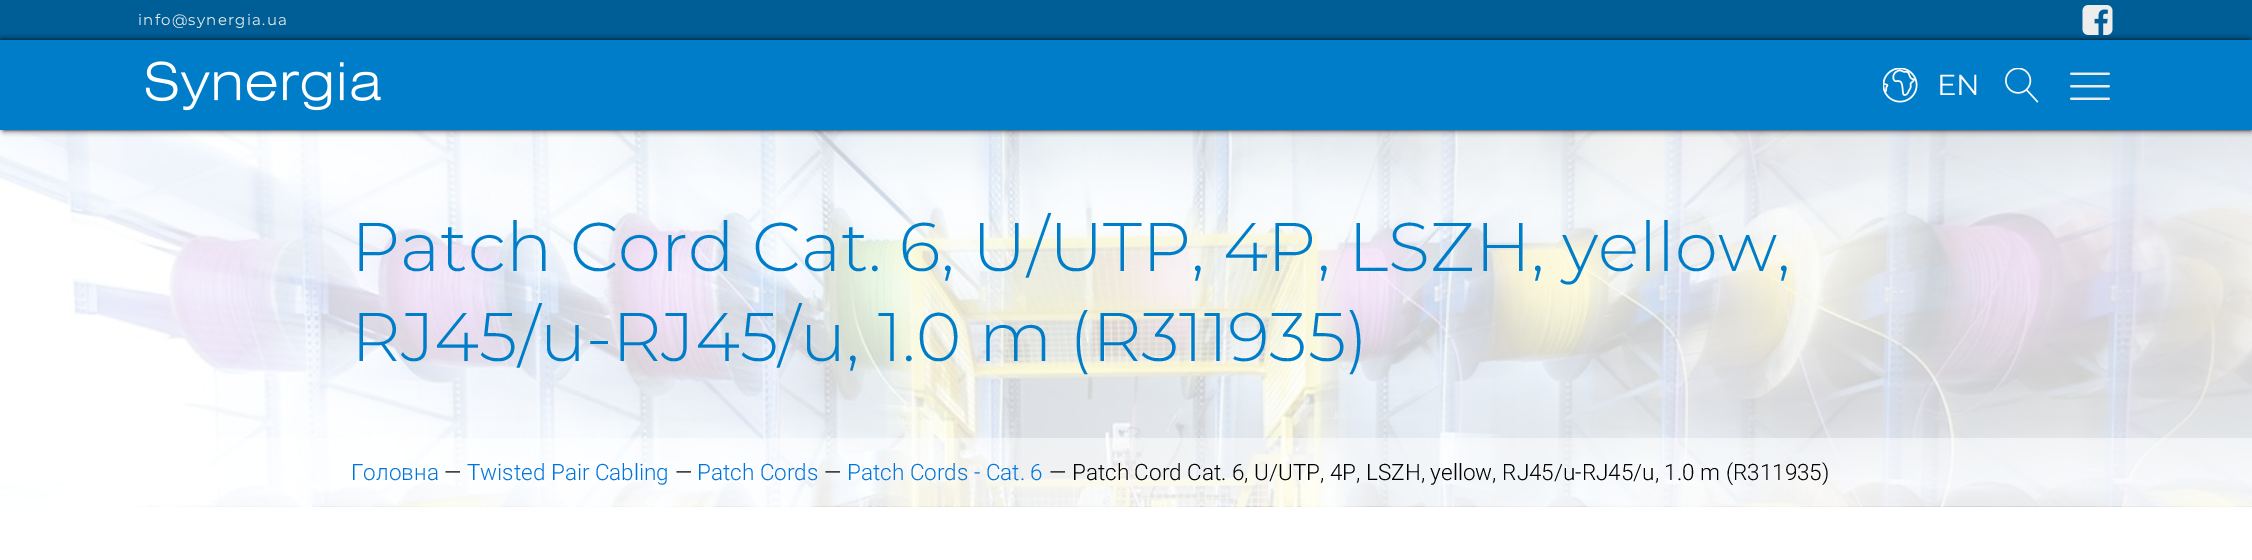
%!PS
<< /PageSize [2252 560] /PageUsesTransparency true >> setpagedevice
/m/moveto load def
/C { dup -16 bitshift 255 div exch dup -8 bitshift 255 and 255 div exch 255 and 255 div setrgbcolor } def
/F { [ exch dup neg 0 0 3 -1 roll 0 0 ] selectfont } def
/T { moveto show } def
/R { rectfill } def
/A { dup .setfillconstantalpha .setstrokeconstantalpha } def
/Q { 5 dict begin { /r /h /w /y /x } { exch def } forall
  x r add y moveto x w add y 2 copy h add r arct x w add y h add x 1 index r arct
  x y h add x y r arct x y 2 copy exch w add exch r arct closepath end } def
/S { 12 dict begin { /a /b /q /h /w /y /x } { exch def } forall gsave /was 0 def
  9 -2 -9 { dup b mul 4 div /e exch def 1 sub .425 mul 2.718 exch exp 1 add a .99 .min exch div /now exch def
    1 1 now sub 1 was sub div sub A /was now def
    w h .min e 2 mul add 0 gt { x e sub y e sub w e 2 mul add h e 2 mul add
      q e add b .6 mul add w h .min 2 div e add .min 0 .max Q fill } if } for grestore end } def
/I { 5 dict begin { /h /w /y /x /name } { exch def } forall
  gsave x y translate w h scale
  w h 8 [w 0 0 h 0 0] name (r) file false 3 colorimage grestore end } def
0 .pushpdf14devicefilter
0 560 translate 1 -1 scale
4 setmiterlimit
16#FFFFFF C
0 0 2252 560 R
(6.rgb) 0 130 2252 377 I
16#000000 C
4 5 2247 125 0 3 1 S
16#005E96 C
0 0 2252 40 R
/Montserrat-Regular 15 F
16#EDEDED C
138 25 m 1.25 0 (info@synergia.ua) ashow
16#000000 C
1 40 2248 85 0 3 1 S
(1.rgb) 2082 5 31 30 I
16#007DC8 C
0 40 2252 90 R
(2.rgb) 145 61 236 50 I
(3.rgb) 1883 68 35 35 I
/Montserrat-Regular 29 F
16#FFFFFF C
(EN) 1937 95 T
(4.rgb) 2005 68 34 35 I
(5.rgb) 2070 72 40 28 I
/Montserrat-Light 68.75 F
16#007DC8 C
(Patch Cord Cat. 6, U/UTP, 4P, LSZH, yellow,) 351 271 T
(RJ45/u-RJ45/u, 1.0 m \(R311935\)) 351 361 T
0.51 A
16#FFFFFF C
0 438 2252 68 R
/Roboto-Light 22.5 F
1 A
16#0074DB C
(Головна) 351 480 T
16#000000 C
(—) 444 480 T
16#0074DB C
(Twisted Pair Cabling) 467 480 T
16#000000 C
(—) 675 480 T
16#0074DB C
(Patch Cords) 697 480 T
16#000000 C
(—) 824 480 T
16#0074DB C
(Patch Cords - Cat. 6) 847 480 T
16#000000 C
(— Patch Cord Cat. 6, U/UTP, 4P, LSZH, yellow, RJ45/u-RJ45/u, 1.0 m \(R311935\)) 1049 480 T
.poppdf14devicefilter showpage
